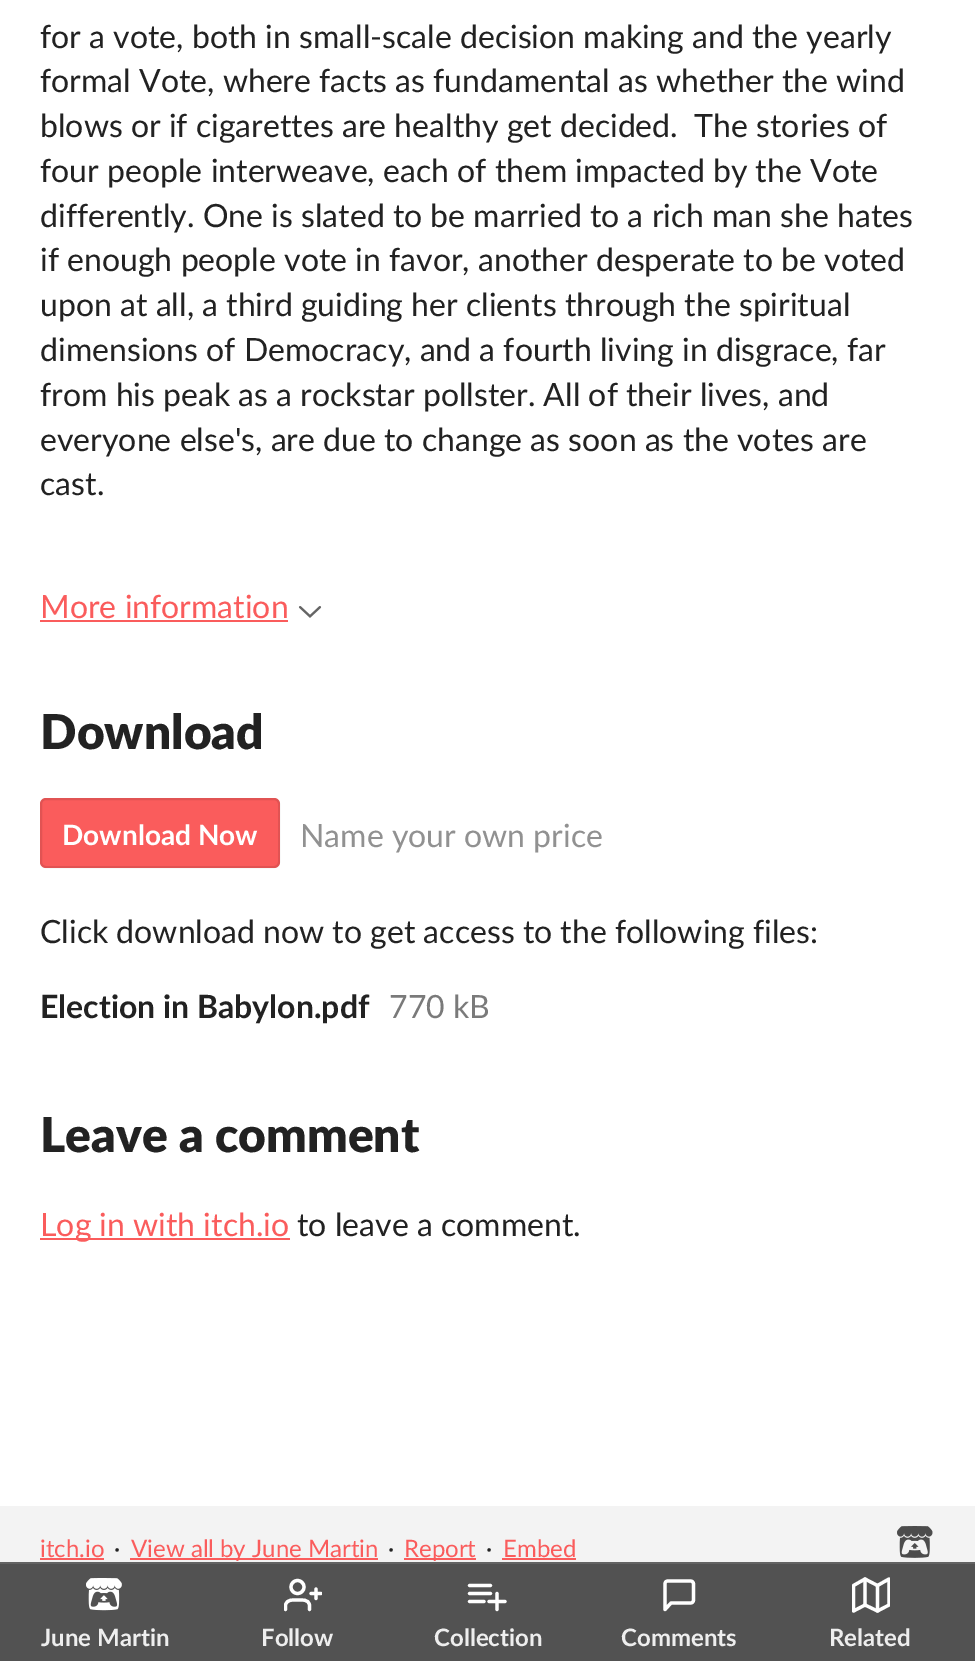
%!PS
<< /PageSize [975 1661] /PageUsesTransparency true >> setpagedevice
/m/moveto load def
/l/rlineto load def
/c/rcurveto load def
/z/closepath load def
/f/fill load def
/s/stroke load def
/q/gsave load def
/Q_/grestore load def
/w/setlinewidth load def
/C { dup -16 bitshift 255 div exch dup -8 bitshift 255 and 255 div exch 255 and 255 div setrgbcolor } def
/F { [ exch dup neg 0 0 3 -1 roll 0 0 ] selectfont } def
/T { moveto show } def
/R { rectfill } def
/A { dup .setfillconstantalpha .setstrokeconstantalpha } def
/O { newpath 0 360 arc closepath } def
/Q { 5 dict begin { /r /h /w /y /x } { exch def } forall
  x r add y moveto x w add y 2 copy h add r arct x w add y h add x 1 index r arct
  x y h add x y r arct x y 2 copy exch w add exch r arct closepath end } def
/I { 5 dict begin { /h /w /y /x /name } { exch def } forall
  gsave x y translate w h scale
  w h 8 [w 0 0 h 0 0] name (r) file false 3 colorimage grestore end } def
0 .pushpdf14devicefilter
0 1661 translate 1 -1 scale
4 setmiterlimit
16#FFFFFF C
0 0 975 1661 R
/Lato-Regular 32 F
16#222222 C
(for a vote, both in small-scale decision making and the yearly) 40 48 T
(formal Vote, where facts as fundamental as whether the wind) 40 92 T
(blows or if cigarettes are healthy get decided.  The stories of) 40 137 T
(four people interweave, each of them impacted by the Vote) 40 182 T
(differently. One is slated to be married to a rich man she hates) 40 227 T
(if enough people vote in favor, another desperate to be voted) 40 271 T
(upon at all, a third guiding her clients through the spiritual) 40 316 T
(dimensions of Democracy, and a fourth living in disgrace, far) 40 361 T
(from his peak as a rockstar pollster. All of their lives, and) 40 406 T
(everyone else's, are due to change as soon as the votes are) 40 451 T
(cast.) 40 495 T
16#FA5C5C C
(More information) 40 618 T
40 620 248 2 R
(1.rgb) 298 606 24 12 I
/Lato-Black 48 F
16#222222 C
(Download) 40 749 T
16#FA5C5C C
40 798 240 70 6 Q f
0.1 A
16#000000 C
2 w
41 799 238 68 5 Q s
/Lato-Bold 28 F
1 A
16#FFFFFF C
(Download Now) 62 845 T
/Lato-Regular 32 F
16#919191 C
(Name your own price) 300 847 T
16#222222 C
(Click download now to get access to the following files:) 40 943 T
/Lato-Bold 32 F
(Election in Babylon.pdf) 40 1018 T
/Lato-Regular 32 F
16#7A7A7A C
(770 kB) 389 1018 T
/Lato-Black 48 F
16#222222 C
(Leave a comment) 40 1152 T
16#FA5C5C C
40 1238 250 2 R
/Lato-Regular 32 F
(Log in with itch.io) 40 1236 T
16#222222 C
(to leave a comment.) 297 1236 T
16#F3F3F3 C
0 1506 975 56 R
/Lato-Regular 24 F
16#FA5C5C C
(itch.io) 40 1557 T
40 1558 64 2 R
16#222222 C
(·) 114 1557 T
16#FA5C5C C
130 1558 248 2 R
(View all by June Martin) 131 1557 T
16#222222 C
(·) 388 1557 T
16#FA5C5C C
404 1558 72 2 R
(Report) 404 1557 T
16#222222 C
(·) 486 1557 T
16#FA5C5C C
(Embed) 503 1557 T
502 1558 74 2 R
(2.rgb) 897 1526 36 32 I
16#525252 C
0 1564 975 97 R
16#636363 C
0 1562 975 2 R
(3.rgb) 86 1578 36 33 I
/Lato-Bold 24 F
16#EEEEEE C
(June Martin) 41 1646 T
q
284 1576 38 38 rectclip
16#FFFFFF C
3.2 w
1 setlinecap
1 setlinejoin
309.5 1609.5 m 0 -4.5 l -1 -6 -7.5 -5 -12 -5 c -4.5 0 -10.5 -1 -12 5 c 0 4.5 l s
Q_
16#FFFFFF C
3.2 w
297.5 1587 6.5 O s
1 setlinecap
1 setlinejoin
316 1589 m 0 9.5 l s
q
284 1576 38 38 rectclip
321 1593.5 m -10 0 l s
Q_
16#EEEEEE C
(Follow) 261 1646 T
16#FFFFFF C
469.5 1585.5 m 21 0 l 469.5 1593.5 m 21 0 l 469.5 1601.5 m 14.5 0 l 497 1593.5 m 0 16 l 489 1601.5 m 16 0 l s
16#EEEEEE C
(Collection) 434 1646 T
16#FFFFFF C
693.5 1600 m 0 2 -1.5 3 -3 3 c -19.5 0 l -6 6.5 l 0 -25.5 l 0 -2 1 -3 3 -3 c 22.5 0 l 1.5 0 3 1 3 3 c z s
16#EEEEEE C
(Comments) 621 1646 T
q
852 1576 38 38 rectclip
16#FFFFFF C
853.5 1585.5 m 0 25.5 l 11.5 -6 l 12.5 6 l 11.5 -6 l 0 -26 l -11.5 6.5 l -12.5 -6.5 l z s
Q_
16#FFFFFF C
865 1579 m 0 26 l 877.5 1585.5 m 0 25.5 l s
16#EEEEEE C
(Related) 829 1646 T
.poppdf14devicefilter showpage
